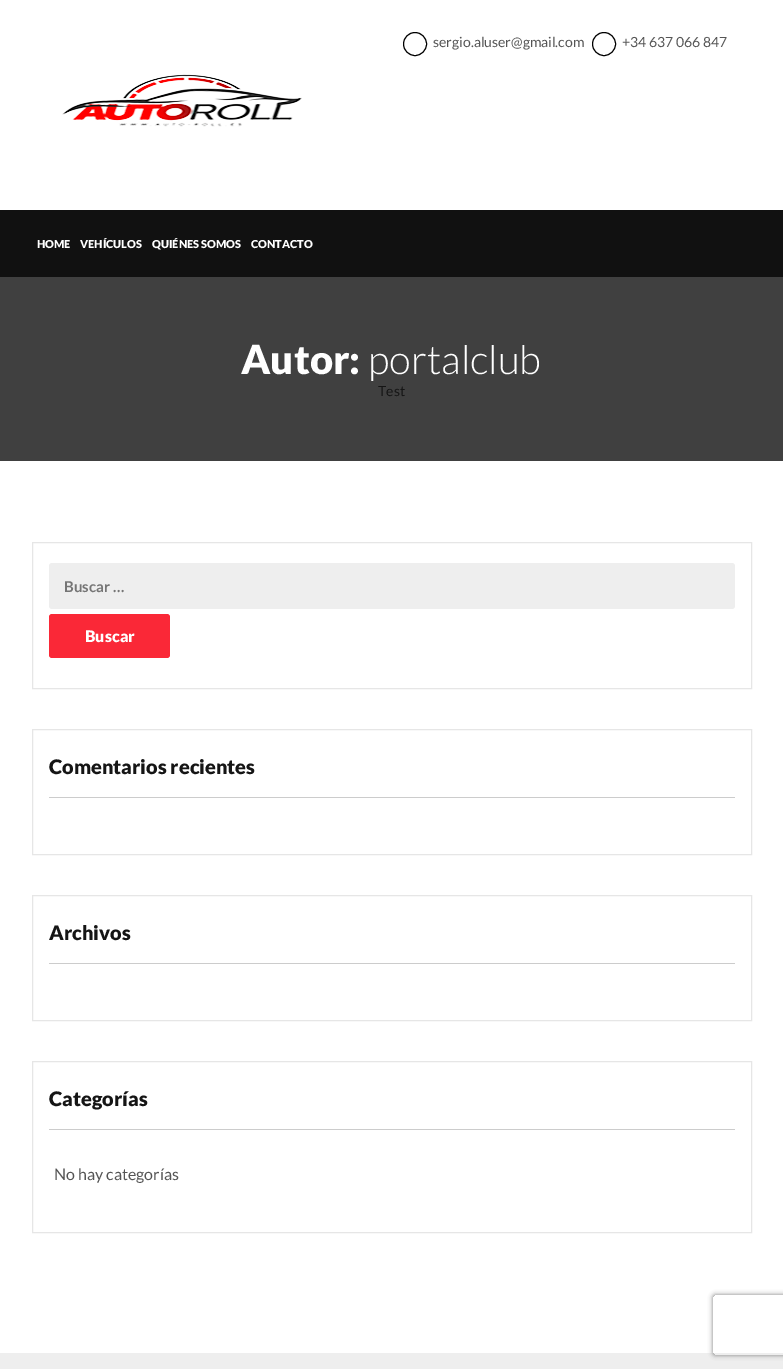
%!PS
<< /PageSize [783 1369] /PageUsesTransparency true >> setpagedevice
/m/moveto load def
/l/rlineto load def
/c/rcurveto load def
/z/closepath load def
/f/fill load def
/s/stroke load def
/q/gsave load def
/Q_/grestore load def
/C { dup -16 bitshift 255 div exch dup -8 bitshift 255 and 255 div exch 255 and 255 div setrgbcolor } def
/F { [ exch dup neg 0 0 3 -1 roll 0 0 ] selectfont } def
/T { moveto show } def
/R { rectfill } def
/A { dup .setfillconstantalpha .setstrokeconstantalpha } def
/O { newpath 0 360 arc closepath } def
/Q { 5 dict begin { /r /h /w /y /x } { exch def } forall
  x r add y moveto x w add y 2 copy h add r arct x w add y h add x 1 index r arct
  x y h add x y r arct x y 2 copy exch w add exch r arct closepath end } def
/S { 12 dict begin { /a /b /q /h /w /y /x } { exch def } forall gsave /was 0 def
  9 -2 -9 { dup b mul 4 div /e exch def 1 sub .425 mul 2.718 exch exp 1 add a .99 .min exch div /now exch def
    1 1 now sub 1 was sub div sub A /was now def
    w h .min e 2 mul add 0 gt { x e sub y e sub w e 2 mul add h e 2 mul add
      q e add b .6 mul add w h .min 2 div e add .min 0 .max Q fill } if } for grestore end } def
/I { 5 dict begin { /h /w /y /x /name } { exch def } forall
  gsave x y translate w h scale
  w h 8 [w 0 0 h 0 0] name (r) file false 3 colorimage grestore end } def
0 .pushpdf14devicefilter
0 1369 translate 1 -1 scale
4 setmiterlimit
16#FFFFFF C
0 0 783 1369 R
16#404040 C
0 277 783 184 R
16#000000 C
415 44 11.5 O s
/Lato-Regular 14 F
16#555555 C
(sergio.aluser@gmail.com) 433 47 T
16#000000 C
604 44 11.5 O s
16#555555 C
(+34 637 066 847) 622 47 T
(1.rgb) 62 74 240 53 I
16#111111 C
0 210 783 67 R
/Lato-Black 11 F
16#FFFFFF C
(HOME) 37 248 T
(VEHÍCULOS) 80 248 T
(QUIÉNES SOMOS) 152 248 T
(CONTACTO) 251 248 T
/Lato-Black 40 F
(Autor:) 241 374 T
/Lato-Light 40 F
(portalclub) 368 374 T
/Lato-Regular 14 F
16#151515 C
(Test) 378 396 T
16#E6E6E6 C
32.5 542.5 719 146 rectstroke
16#EEEEEE C
49 563 686 46 3 Q f
/Lato-Bold 15 F
16#757575 C
(Buscar …) 64 592 T
16#FA2837 C
49 614 121 44 3 Q f
/Lato-Black 16 F
16#FFFFFF C
(Buscar) 85 642 T
16#E6E6E6 C
32.5 729.5 719 125 rectstroke
16#CCCCCC C
49 797 686 1 R
/Lato-Black 20 F
16#151515 C
(Comentarios recientes) 49 774 T
16#E6E6E6 C
32.5 895.5 719 125 rectstroke
16#CCCCCC C
49 963 686 1 R
16#151515 C
(Archivos) 49 940 T
16#E6E6E6 C
32.5 1061.5 719 171 rectstroke
16#CCCCCC C
49 1129 686 1 R
16#151515 C
(Categorías) 49 1106 T
/Lato-Regular 16 F
16#555555 C
(No hay categorías) 54 1180 T
16#EEEEEE C
0 1353 783 16 R
q
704 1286 m 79 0 l 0 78 l -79 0 l z 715 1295 m 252 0 l 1 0 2 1 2 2 c 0 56 l 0 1 -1 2 -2 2 c -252 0 l -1 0 -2 -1 -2 -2 c 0 -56 l 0 -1 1 -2 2 -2 c z eoclip newpath
16#808080 C
713 1295 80 60 2 2.5 1 S
Q_
.poppdf14devicefilter showpage
